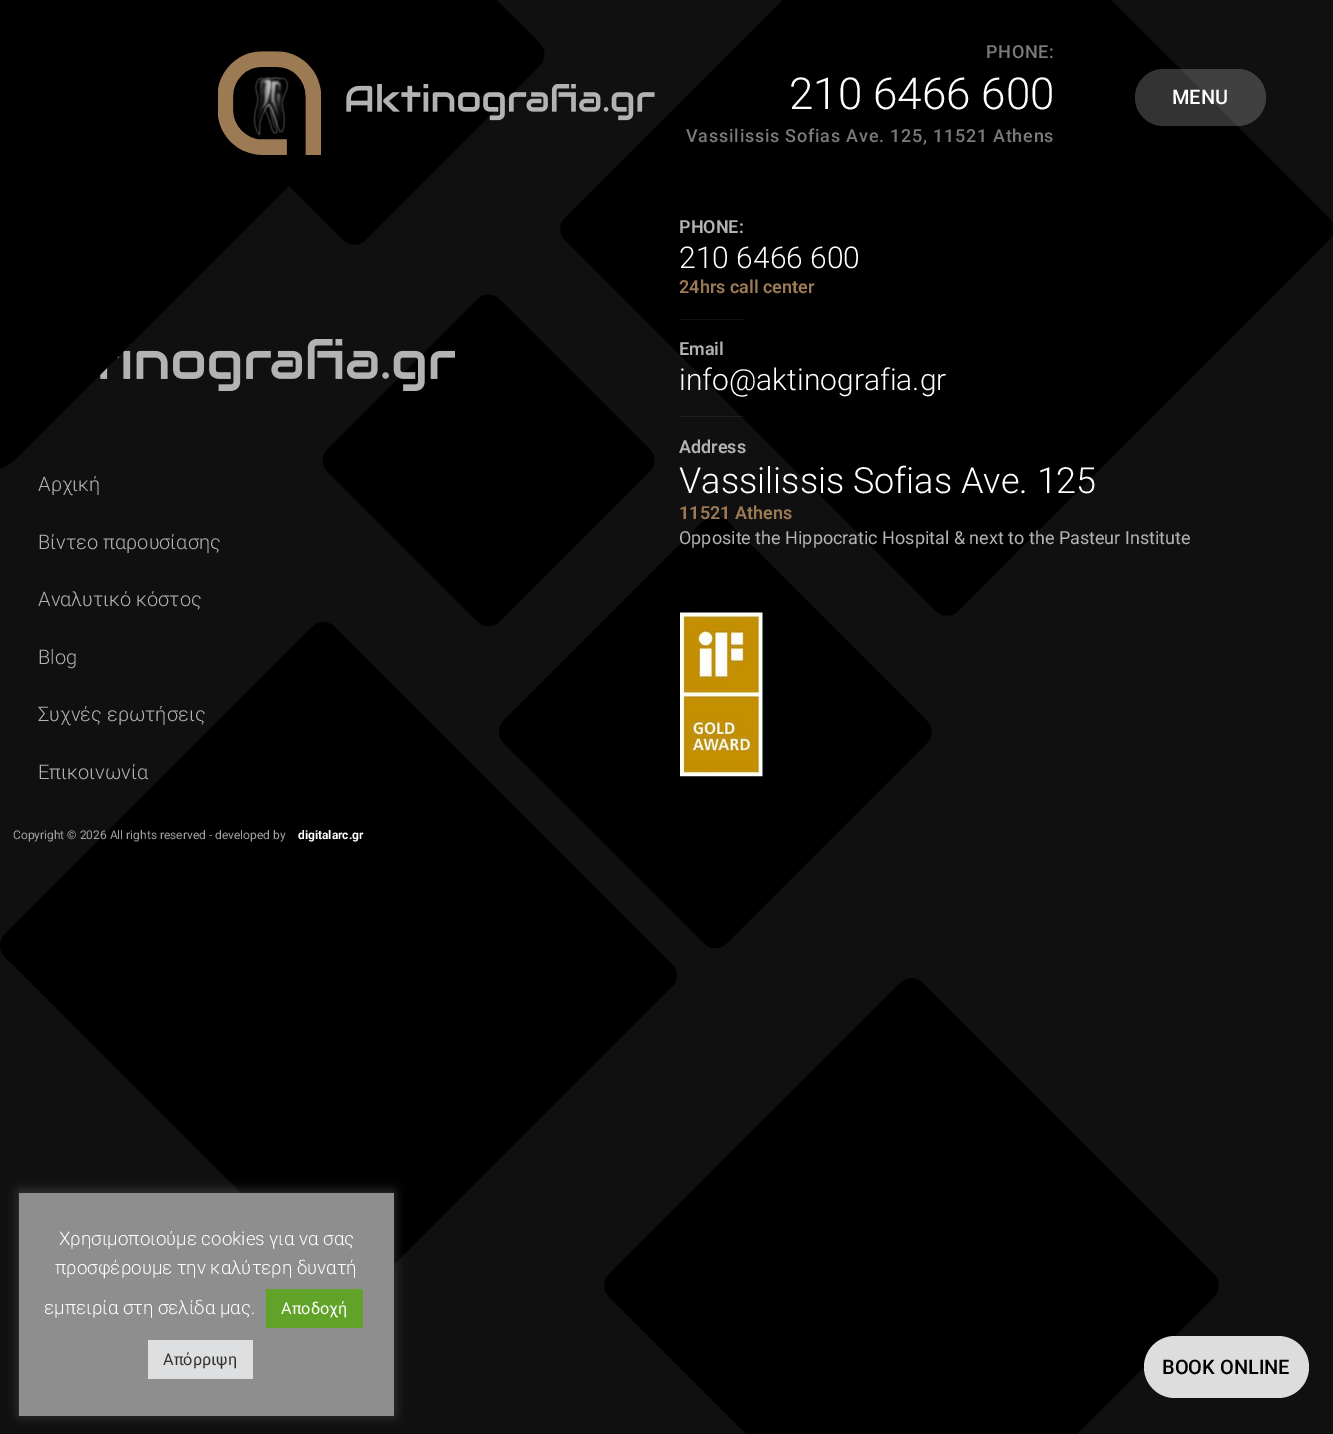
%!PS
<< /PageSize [1333 1434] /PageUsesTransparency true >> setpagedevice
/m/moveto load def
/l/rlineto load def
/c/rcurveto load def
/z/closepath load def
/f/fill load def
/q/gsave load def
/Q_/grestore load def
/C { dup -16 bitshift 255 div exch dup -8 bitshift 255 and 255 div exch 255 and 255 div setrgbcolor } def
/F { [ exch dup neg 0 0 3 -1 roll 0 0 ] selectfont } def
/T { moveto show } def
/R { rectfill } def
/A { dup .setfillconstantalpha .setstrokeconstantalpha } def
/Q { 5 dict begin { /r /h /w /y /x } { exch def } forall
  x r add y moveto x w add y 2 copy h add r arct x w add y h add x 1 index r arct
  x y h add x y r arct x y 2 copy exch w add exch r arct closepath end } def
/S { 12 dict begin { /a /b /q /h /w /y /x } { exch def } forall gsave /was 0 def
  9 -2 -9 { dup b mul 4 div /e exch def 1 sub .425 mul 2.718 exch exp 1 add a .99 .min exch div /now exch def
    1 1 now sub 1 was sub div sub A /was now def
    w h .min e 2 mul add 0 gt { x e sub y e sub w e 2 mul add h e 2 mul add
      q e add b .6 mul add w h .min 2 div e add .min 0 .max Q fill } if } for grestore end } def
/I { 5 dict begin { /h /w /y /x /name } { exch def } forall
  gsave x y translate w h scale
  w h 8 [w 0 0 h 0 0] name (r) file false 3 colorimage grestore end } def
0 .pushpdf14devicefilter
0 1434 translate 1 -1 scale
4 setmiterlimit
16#101010 C
0 0 1333 1434 R
(1.rgb) 0 0 1333 1434 I
(4.rgb) 100 339 355 52 I
q
0 0 376 471 rectclip
16#000000 C
-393 48 m 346 -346 l 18 -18 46 -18 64 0 c 346 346 l 18 18 18 46 0 64 c -346 346 l -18 18 -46 18 -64 0 c -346 -346 l -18 -18 -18 -46 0 -64 c z f
Q_
(2.rgb) 218 51 103 104 I
(3.rgb) 346 84 309 37 I
/Roboto-Medium 18 F
16#7A7A7A C
986 58 m .75 0 (PHONE:) ashow
/Roboto-Light 44 F
16#FFFFFF C
(210 6466 600) 789 109 T
/Roboto-Medium 18 F
16#7A7A7A C
686 142 m .75 0 (Vassilissis Sofias Ave. 125, 11521 Athens) ashow
0.2 A
16#FFFFFF C
1135 69 131 57 28.5 Q f
/Roboto-Medium 20 F
1 A
(MENU) 1172 104 T
/Roboto-Light 20 F
16#B3B3B3 C
(Αρχική) 38 491 T
(Βίντεο παρουσίασης) 38 549 T
(Αναλυτικό κόστος) 38 606 T
(Blog) 38 664 T
(Συχνές ερωτήσεις) 38 721 T
(Επικοινωνία) 38 779 T
/Roboto-SemiBold 18 F
(PHONE:) 679 233 T
/Roboto-Light 30 F
16#FFFFFF C
(210 6466 600) 679 268 T
/Roboto-SemiBold 18 F
16#9C7B54 C
(24hrs call center) 679 293 T
16#101010 C
680 319 64 1 R
16#B3B3B3 C
(Email) 679 355 T
/Roboto-Light 30 F
16#FFFFFF C
(info@aktinografia.gr) 679 390 T
0.09 A
16#B3B3B3 C
680 416 64 1 R
/Roboto-SemiBold 18 F
1 A
(Address) 679 453 T
/Roboto-Light 36 F
16#FFFFFF C
(Vassilissis Sofias Ave. 125) 679 493 T
/Roboto-SemiBold 18 F
16#9C7B54 C
(11521 Athens) 679 519 T
/Roboto-Regular 18 F
16#B3B3B3 C
(Opposite the Hippocratic Hospital & next to the Pasteur Institute) 679 544 T
(5.rgb) 680 612 83 165 I
16#DDDDDD C
1144 1336 165 62 31 Q f
/Roboto-Medium 20 F
16#000000 C
(BOOK ONLINE) 1162 1374 T
/Roboto-Regular 12 F
16#A1A1A1 C
(Copyright © 2026 All rights reserved - developed by) 13 839 T
/Roboto-Bold 12 F
16#FFFFFF C
(digitalarc.gr) 298 839 T
16#ACABAB C
19 1191 375 224 0 6 .3 S
16#8E8E8E C
19 1193 375 223 R
/Roboto-Light 18.75 F
16#FFFFFF C
(Χρησιμοποιούμε cookies για να σας) 59 1245 T
(προσφέρουμε την καλύτερη δυνατή) 55 1274 T
(εμπειρία στη σελίδα μας.) 44 1314 T
16#61A229 C
266 1289 97 39 R
/Roboto-Regular 16.25 F
16#FFFFFF C
(Αποδοχή) 281 1314 T
16#DEDFE0 C
148 1340 105 39 R
16#333333 C
(Απόρριψη) 163 1365 T
.poppdf14devicefilter showpage
